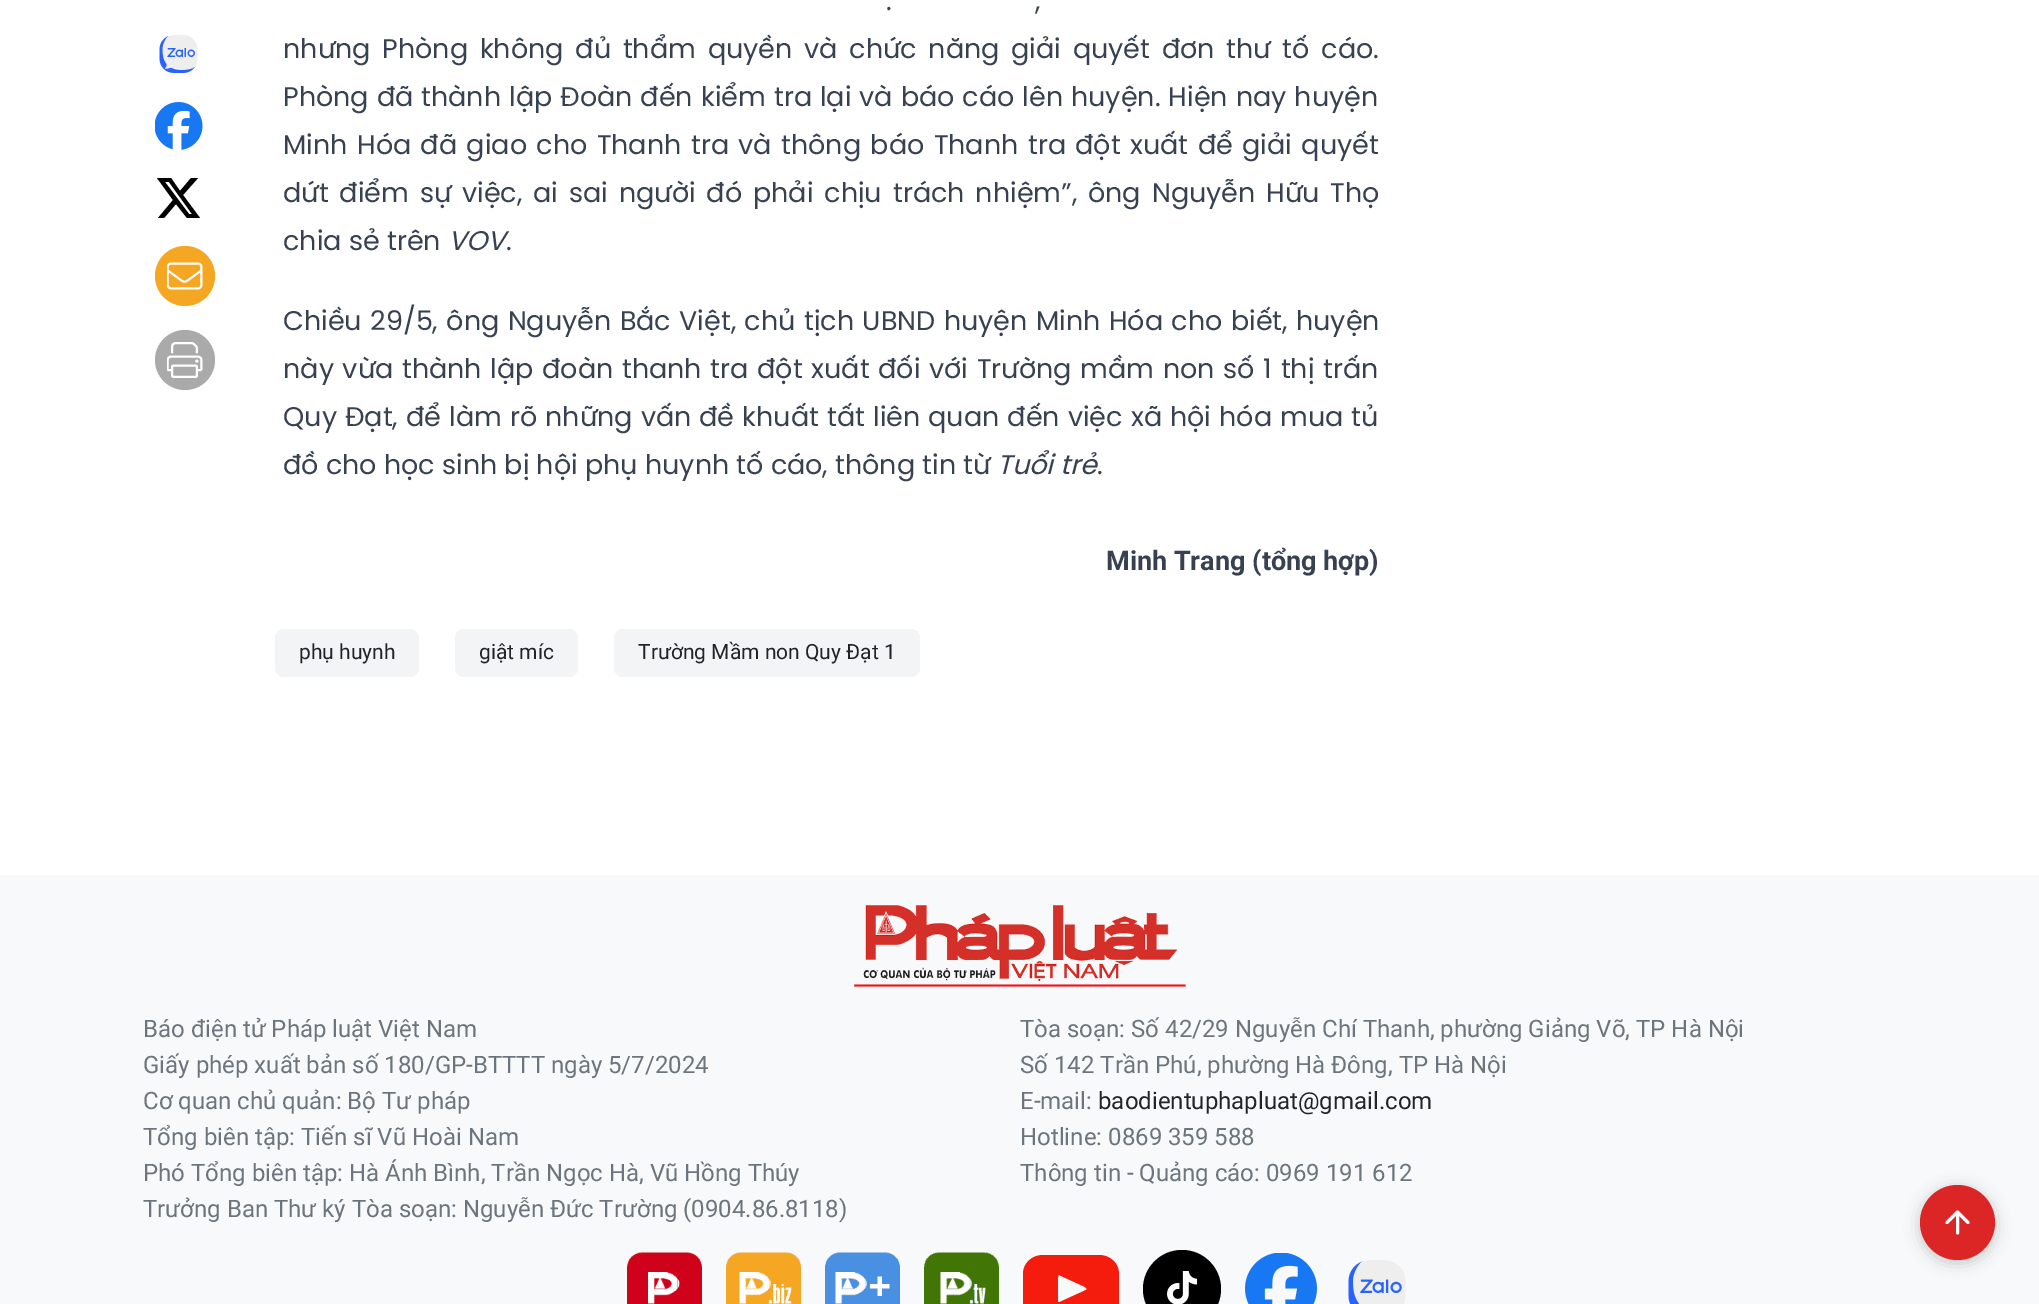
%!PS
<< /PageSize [2039 1304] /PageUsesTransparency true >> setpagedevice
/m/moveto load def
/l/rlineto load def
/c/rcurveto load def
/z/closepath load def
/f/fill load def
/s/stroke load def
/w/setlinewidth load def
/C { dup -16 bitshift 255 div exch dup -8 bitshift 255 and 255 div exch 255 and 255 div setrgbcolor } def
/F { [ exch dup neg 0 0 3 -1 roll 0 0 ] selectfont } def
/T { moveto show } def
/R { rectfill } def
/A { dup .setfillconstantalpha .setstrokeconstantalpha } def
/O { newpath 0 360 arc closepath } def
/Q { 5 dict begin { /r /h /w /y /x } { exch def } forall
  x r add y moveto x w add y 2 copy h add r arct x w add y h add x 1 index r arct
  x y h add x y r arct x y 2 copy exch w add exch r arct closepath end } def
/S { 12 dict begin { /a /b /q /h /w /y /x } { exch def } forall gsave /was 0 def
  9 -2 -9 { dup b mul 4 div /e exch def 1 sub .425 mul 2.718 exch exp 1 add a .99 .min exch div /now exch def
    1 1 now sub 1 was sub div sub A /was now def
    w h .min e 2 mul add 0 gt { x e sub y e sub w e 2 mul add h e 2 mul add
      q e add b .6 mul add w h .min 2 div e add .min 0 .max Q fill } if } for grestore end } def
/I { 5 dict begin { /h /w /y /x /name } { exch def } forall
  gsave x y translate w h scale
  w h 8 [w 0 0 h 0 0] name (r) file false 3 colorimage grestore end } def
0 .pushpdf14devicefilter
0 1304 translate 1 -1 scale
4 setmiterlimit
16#FFFFFF C
0 0 2039 1304 R
(1.rgb) 159 35 39 38 I
(2.rgb) 155 102 48 48 I
16#000000 C
191 178 m 7 0 l -15 17 l 17 23 l -13 0 l -11 -14 l -12 14 l -6 0 l 15 -18 l -16 -22 l 14 0 l 9 13 l z 189 214 m 3 0 l -23 -32 l -4 0 l z f
16#F5A623 C
185 276 30 O f
(3.rgb) 167 262 36 28 I
16#AAAAAA C
185 360 30 O f
(4.rgb) 167 342 36 36 I
/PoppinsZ-Regular 27 F
16#374151 C
886 10 m 3 0 32 (.) widthshow
1035 10 m 3 0 32 (,) widthshow
283 58 m 4.6 0 32 (nhưng Phòng không đủ thẩm quyền và chức năng giải quyết đơn thư tố cáo.) widthshow
283 106 m .8 0 32 (Phòng đã thành lập Đoàn đến kiểm tra lại và báo cáo lên huyện. Hiện nay huyện) widthshow
283 154 m 2.25 0 32 (Minh Hóa đã giao cho Thanh tra và thông báo Thanh tra đột xuất để giải quyết) widthshow
283 202 m 3.75 0 32 (dứt điểm sự việc, ai sai người đó phải chịu trách nhiệm”, ông Nguyễn Hữu Thọ) widthshow
(chia sẻ trên) 283 250 T
/PoppinsZ-Italic 27 F
(VOV) 448 250 T
/PoppinsZ-Regular 27 F
(.) 506 250 T
283 330 m 1.25 0 32 (Chiều 29/5, ông Nguyễn Bắc Việt, chủ tịch UBND huyện Minh Hóa cho biết, huyện) widthshow
283 378 m 1.5 0 32 (này vừa thành lập đoàn thanh tra đột xuất đối với Trường mầm non số 1 thị trấn) widthshow
283 426 m .9 0 32 (Quy Đạt, để làm rõ những vấn đề khuất tất liên quan đến việc xã hội hóa mua tủ) widthshow
(đồ cho học sinh bị hội phụ huynh tố cáo, thông tin từ) 283 474 T
/PoppinsZ-Italic 27 F
(Tuổi trẻ) 997 474 T
/PoppinsZ-Regular 27 F
(.) 1097 474 T
/Roboto-Bold 27 F
(Minh Trang \(tổng hợp\)) 1106 570 T
16#F3F4F6 C
275 629 144 48 9 Q f
/Roboto-Regular 21 F
16#212529 C
(phụ huynh) 299 659 T
16#F3F4F6 C
455 629 123 48 9 Q f
16#212529 C
(giật míc) 479 659 T
16#F3F4F6 C
614 629 306 48 9 Q f
16#212529 C
(Trường Mầm non Quy Đạt 1) 638 659 T
16#F8F9FA C
0 875 2039 429 R
(5.rgb) 853 905 333 82 I
/Roboto-Regular 24 F
16#6C757D C
(Báo điện tử Pháp luật Việt Nam) 143 1037 T
(Giấy phép xuất bản số 180/GP-BTTTT ngày 5/7/2024) 143 1073 T
(Cơ quan chủ quản: Bộ Tư pháp) 143 1109 T
(Tổng biên tập: Tiến sĩ Vũ Hoài Nam) 143 1145 T
(Phó Tổng biên tập: Hà Ánh Bình, Trần Ngọc Hà, Vũ Hồng Thúy) 143 1181 T
(Trưởng Ban Thư ký Tòa soạn: Nguyễn Đức Trường \(0904.86.8118\)) 143 1217 T
(Tòa soạn: Số 42/29 Nguyễn Chí Thanh, phường Giảng Võ, TP Hà Nội) 1020 1037 T
(Số 142 Trần Phú, phường Hà Đông, TP Hà Nội) 1020 1073 T
(E-mail:) 1020 1109 T
16#212529 C
(baodientuphapluat@gmail.com) 1098 1109 T
16#6C757D C
(Hotline: 0869 359 588) 1020 1145 T
(Thông tin - Quảng cáo: 0969 191 612) 1020 1181 T
(6.rgb) 627 1252 75 52 I
(7.rgb) 726 1252 75 52 I
(8.rgb) 825 1252 75 52 I
(9.rgb) 924 1252 75 52 I
16#F61C0D C
1099 1255 m -56 0 l -11 0 -20 8 -20 19 c 0 29 l 0 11 9 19 20 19 c 56 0 l 11 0 20 -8 20 -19 c 0 -29 l 0 -11 -9 -19 -20 -19 c z 1086 1290 m -22 10 l -8 4 -6 3 -6 -7 c 0 -3 -1 -18 1 -18 c 13 6 l 11 5 17 7 14 9 c z f
16#000000 C
1182 1289 39 O f
(10.rgb) 1167 1271 30 33 I
(11.rgb) 1245 1253 72 51 I
(12.rgb) 1348 1260 58 44 I
1920 1188 75 75 37.5 7.5 .2 S
16#DC2626 C
1957.5 1222.5 37.5 O f
16#FFFFFF C
3 w
1 setlinecap
1 setlinejoin
1957.5 1233 m 0 -21 l 1947 1222.5 m 10.5 -10.5 l 10.5 10.5 l s
.poppdf14devicefilter showpage
